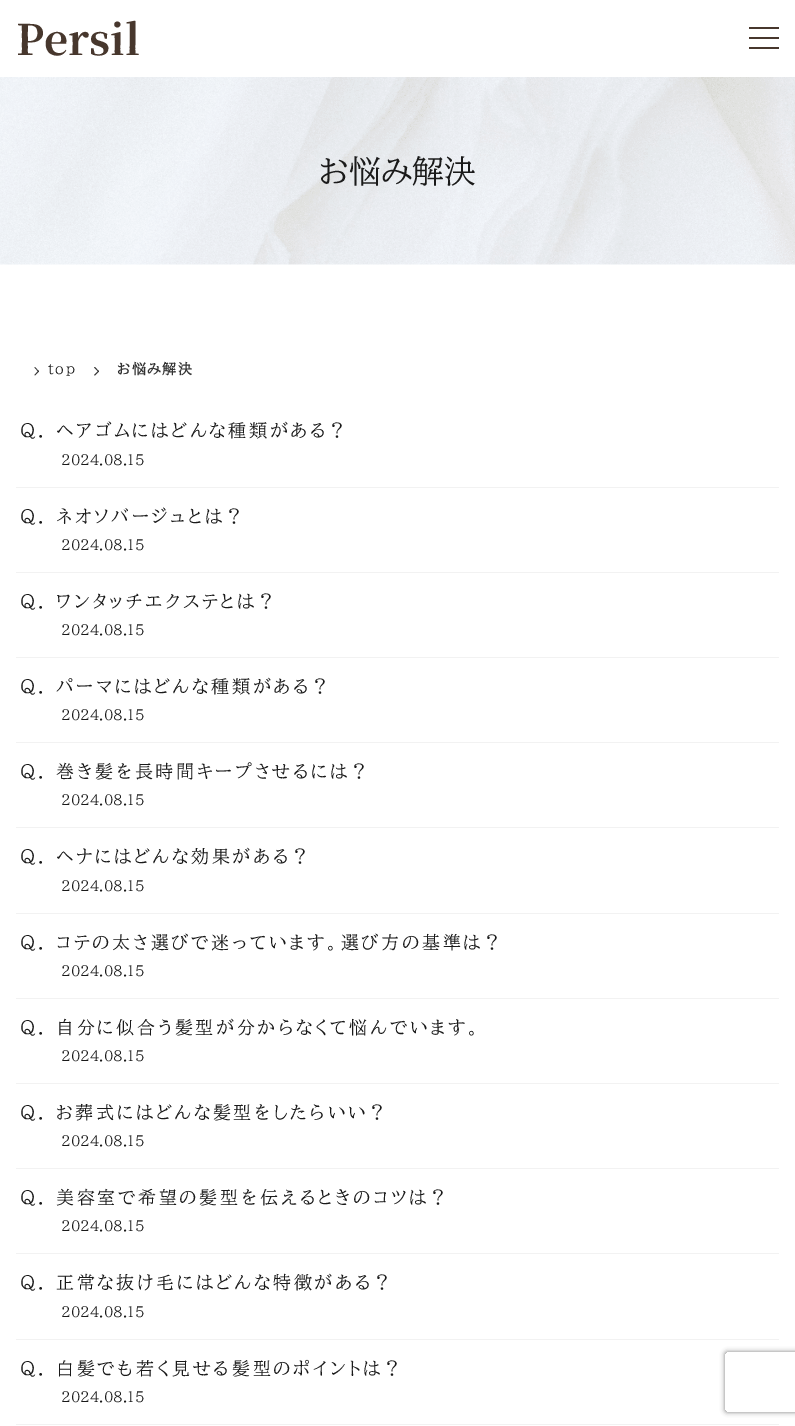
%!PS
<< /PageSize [795 1426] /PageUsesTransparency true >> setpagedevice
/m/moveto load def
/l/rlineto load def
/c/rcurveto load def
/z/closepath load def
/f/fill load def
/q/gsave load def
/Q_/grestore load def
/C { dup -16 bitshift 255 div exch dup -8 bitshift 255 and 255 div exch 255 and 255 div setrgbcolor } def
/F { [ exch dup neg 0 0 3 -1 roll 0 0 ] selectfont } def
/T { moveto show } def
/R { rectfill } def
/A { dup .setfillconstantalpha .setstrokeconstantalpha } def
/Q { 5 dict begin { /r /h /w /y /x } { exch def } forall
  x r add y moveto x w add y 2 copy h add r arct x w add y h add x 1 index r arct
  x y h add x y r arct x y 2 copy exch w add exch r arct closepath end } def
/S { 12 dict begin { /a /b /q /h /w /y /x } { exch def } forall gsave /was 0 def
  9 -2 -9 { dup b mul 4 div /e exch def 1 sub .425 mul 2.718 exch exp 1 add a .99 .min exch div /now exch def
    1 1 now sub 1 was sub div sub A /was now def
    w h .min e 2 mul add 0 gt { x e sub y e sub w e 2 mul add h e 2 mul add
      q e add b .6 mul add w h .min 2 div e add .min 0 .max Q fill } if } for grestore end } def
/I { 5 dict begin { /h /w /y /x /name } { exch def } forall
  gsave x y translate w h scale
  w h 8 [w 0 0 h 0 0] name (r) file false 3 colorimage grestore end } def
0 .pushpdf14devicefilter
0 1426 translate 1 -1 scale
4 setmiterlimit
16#FFFFFF C
0 0 795 1426 R
/NotoSerifJP-Bold 42 F
16#47372D C
(Persil) 16 55 T
749 27 30 2 R
749 37 30 2 R
749 47 30 2 R
(1.rgb) 0 77 795 188 I
/BIZUDPMincho-Regular 32 F
16#1A1A1A C
(お悩み解決) 319 183 T
16#333333 C
35 367 m 4 4.5 l -.5 .5 l -4 -4.5 l z f
38.5 370.5 m .5 1 l -4 4 l -.5 -.5 l z f
/BIZUDPMincho-Regular 14 F
16#1A1A1A C
48 374 m 1.5 0 (top) ashow
16#333333 C
95 367 m 4 4.5 l -.5 .5 l -4.5 -4.5 l z f
98.5 370.5 m .5 1 l -4 4 l -1 -.5 l z f
/BIZUDPMincho-Bold 14 F
117 374 m 1.5 0 (お悩み解決) ashow
16#F2F2F2 C
16 487 763 1 R
/BIZUDPMincho-Regular 18 F
16#1A1A1A C
20 437 m 2.7 0 (Q.) ashow
56 437 m 2.7 0 (ヘアゴムにはどんな種類がある？) ashow
/BIZUDPMincho-Regular 14 F
(2024.08.15) 61 465 T
16#F2F2F2 C
16 572 763 1 R
/BIZUDPMincho-Regular 18 F
16#1A1A1A C
20 523 m 2.7 0 (Q.) ashow
56 523 m 2.7 0 (ネオソバージュとは？) ashow
/BIZUDPMincho-Regular 14 F
(2024.08.15) 61 550 T
16#F2F2F2 C
16 657 763 1 R
/BIZUDPMincho-Regular 18 F
16#1A1A1A C
20 608 m 2.7 0 (Q.) ashow
56 608 m 2.7 0 (ワンタッチエクステとは？) ashow
/BIZUDPMincho-Regular 14 F
(2024.08.15) 61 635 T
16#F2F2F2 C
16 742 763 1 R
/BIZUDPMincho-Regular 18 F
16#1A1A1A C
20 693 m 2.7 0 (Q.) ashow
56 693 m 2.7 0 (パーマにはどんな種類がある？) ashow
/BIZUDPMincho-Regular 14 F
(2024.08.15) 61 720 T
16#F2F2F2 C
16 827 763 1 R
/BIZUDPMincho-Regular 18 F
16#1A1A1A C
20 778 m 2.7 0 (Q.) ashow
56 778 m 2.7 0 (巻き髪を長時間キープさせるには？) ashow
/BIZUDPMincho-Regular 14 F
(2024.08.15) 61 805 T
16#F2F2F2 C
16 913 763 1 R
/BIZUDPMincho-Regular 18 F
16#1A1A1A C
20 863 m 2.7 0 (Q.) ashow
56 863 m 2.7 0 (ヘナにはどんな効果がある？) ashow
/BIZUDPMincho-Regular 14 F
(2024.08.15) 61 891 T
16#F2F2F2 C
16 998 763 1 R
/BIZUDPMincho-Regular 18 F
16#1A1A1A C
20 949 m 2.7 0 (Q.) ashow
56 949 m 2.7 0 (コテの太さ選びで迷っています。選び方の基準は？) ashow
/BIZUDPMincho-Regular 14 F
(2024.08.15) 61 976 T
16#F2F2F2 C
16 1083 763 1 R
/BIZUDPMincho-Regular 18 F
16#1A1A1A C
20 1034 m 2.7 0 (Q.) ashow
56 1034 m 2.7 0 (自分に似合う髪型が分からなくて悩んでいます。) ashow
/BIZUDPMincho-Regular 14 F
(2024.08.15) 61 1061 T
16#F2F2F2 C
16 1168 763 1 R
/BIZUDPMincho-Regular 18 F
16#1A1A1A C
20 1119 m 2.7 0 (Q.) ashow
56 1119 m 2.7 0 (お葬式にはどんな髪型をしたらいい？) ashow
/BIZUDPMincho-Regular 14 F
(2024.08.15) 61 1146 T
16#F2F2F2 C
16 1253 763 1 R
/BIZUDPMincho-Regular 18 F
16#1A1A1A C
20 1204 m 2.7 0 (Q.) ashow
56 1204 m 2.7 0 (美容室で希望の髪型を伝えるときのコツは？) ashow
/BIZUDPMincho-Regular 14 F
(2024.08.15) 61 1231 T
16#F2F2F2 C
16 1339 763 1 R
/BIZUDPMincho-Regular 18 F
16#1A1A1A C
20 1289 m 2.7 0 (Q.) ashow
56 1289 m 2.7 0 (正常な抜け毛にはどんな特徴がある？) ashow
/BIZUDPMincho-Regular 14 F
(2024.08.15) 61 1317 T
16#F2F2F2 C
16 1424 763 1 R
/BIZUDPMincho-Regular 18 F
16#1A1A1A C
20 1375 m 2.7 0 (Q.) ashow
56 1375 m 2.7 0 (白髪でも若く見せる髪型のポイントは？) ashow
/BIZUDPMincho-Regular 14 F
(2024.08.15) 61 1402 T
q
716 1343 m 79 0 l 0 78 l -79 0 l z 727 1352 m 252 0 l 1 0 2 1 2 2 c 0 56 l 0 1 -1 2 -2 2 c -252 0 l -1 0 -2 -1 -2 -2 c 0 -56 l 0 -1 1 -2 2 -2 c z eoclip newpath
16#808080 C
725 1352 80 60 2 2.5 1 S
Q_
.poppdf14devicefilter showpage
